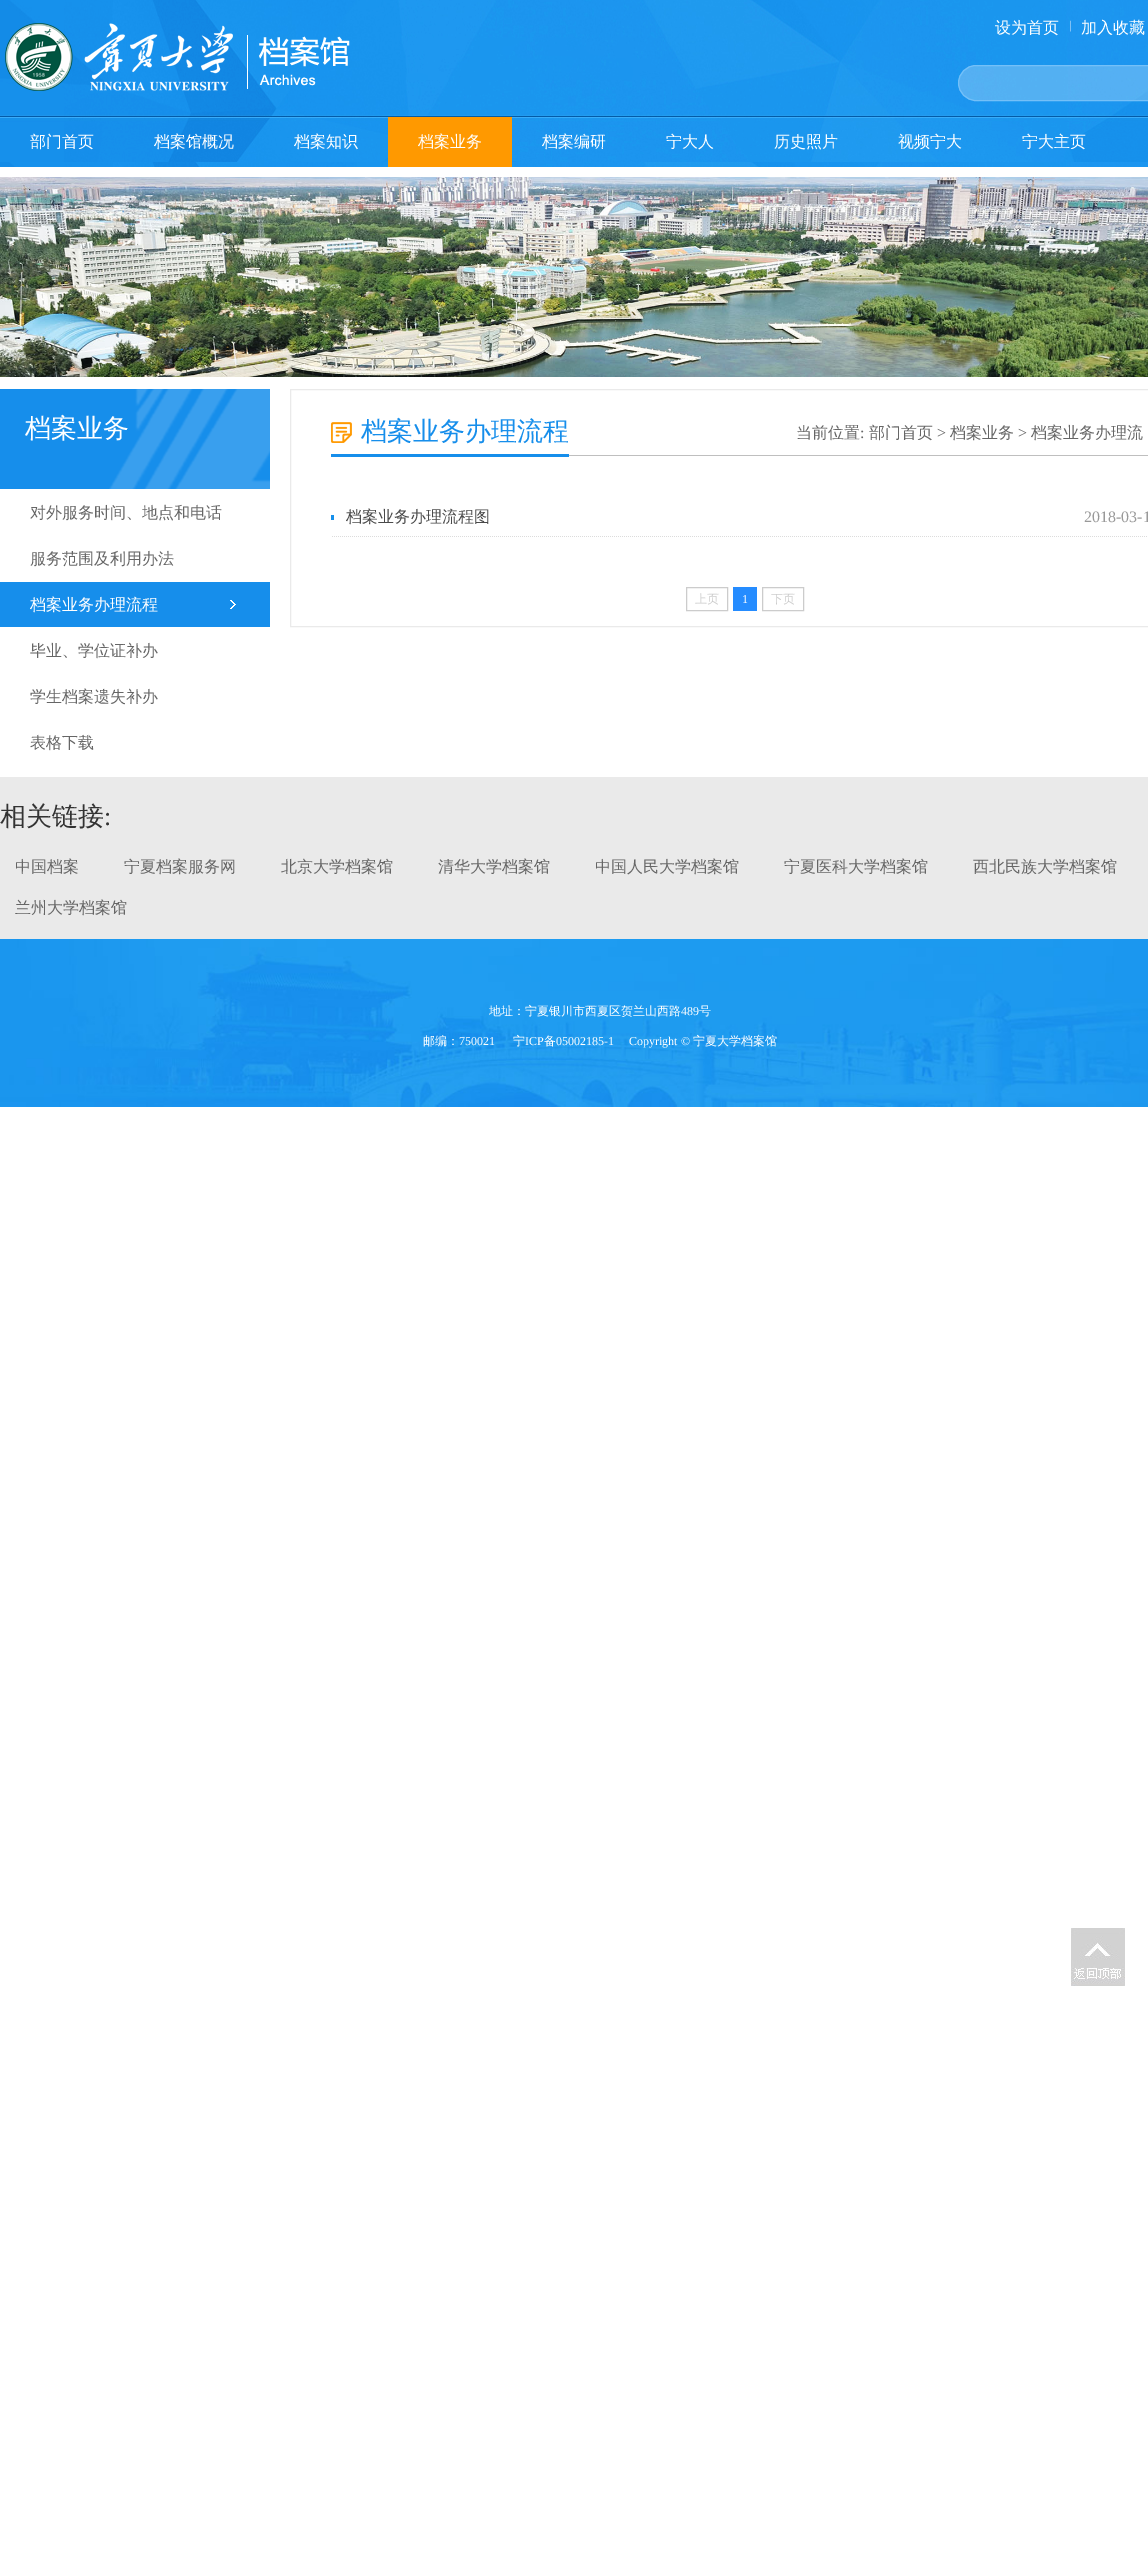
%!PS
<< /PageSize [1148 2570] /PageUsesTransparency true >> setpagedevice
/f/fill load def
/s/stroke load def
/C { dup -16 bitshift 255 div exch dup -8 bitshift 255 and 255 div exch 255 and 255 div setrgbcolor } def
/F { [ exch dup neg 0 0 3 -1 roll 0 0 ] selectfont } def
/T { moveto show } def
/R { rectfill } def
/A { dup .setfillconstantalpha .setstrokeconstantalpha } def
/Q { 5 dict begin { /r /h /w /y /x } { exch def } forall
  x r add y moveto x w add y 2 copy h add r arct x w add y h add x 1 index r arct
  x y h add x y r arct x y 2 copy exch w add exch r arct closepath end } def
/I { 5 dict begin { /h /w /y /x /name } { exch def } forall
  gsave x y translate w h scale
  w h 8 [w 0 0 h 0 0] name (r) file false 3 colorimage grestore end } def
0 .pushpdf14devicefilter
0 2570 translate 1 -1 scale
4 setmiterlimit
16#FFFFFF C
0 0 1148 2570 R
(1.rgb) 0 0 1148 167 I
(2.rgb) 5 23 345 68 I
/WenQuanYiZenHei-Medium 16 F
(设为首页) 995 33 T
/LiberationSerif-Regular 12 F
16#D3E6FB C
(|) 1069 29 T
/WenQuanYiZenHei-Medium 16 F
16#FFFFFF C
(加入收藏) 1081 33 T
0.25 A
958.5 65.5 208 35 17.5 Q f
1 A
16#74C0F8 C
958.5 65.5 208 35 17.5 Q s
16#FFFFFF C
(部门首页) 30 147 T
(档案馆概况) 154 147 T
(档案知识) 294 147 T
16#FF9900 C
388 117 124 50 R
16#FFFFFF C
(档案业务) 418 147 T
(档案编研) 542 147 T
(宁大人) 666 147 T
(历史照片) 774 147 T
(视频宁大) 898 147 T
(宁大主页) 1022 147 T
(3.rgb) 0 177 1148 200 I
16#168EEB C
0 389 270 100 R
(4.rgb) 109 389 161 100 I
/WenQuanYiZenHei-Medium 26 F
16#FFFFFF C
(档案业务) 25 437 T
/WenQuanYiZenHei-Medium 16 F
16#666666 C
(对外服务时间、地点和电话) 30 518 T
(服务范围及利用办法) 30 564 T
16#168EEB C
0 582 270 45 R
(5.rgb) 230 600 6 9 I
16#FFFFFF C
(档案业务办理流程) 30 610 T
16#666666 C
(毕业、学位证补办) 30 656 T
(学生档案遗失补办) 30 702 T
(表格下载) 30 748 T
16#EAEAEA C
290.5 389.5 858 237 rectstroke
16#BFBFBF C
569 455 579 1 R
(6.rgb) 331 422 21 21 I
16#168EEB C
331 454 238 3 R
/WenQuanYiZenHei-Medium 26 F
(档案业务办理流程) 361 440 T
/WenQuanYiZenHei-Medium 16 F
16#666666 C
(当前位置) 796 438 T
/LiberationSerif-Regular 16 F
(:) 860 438 T
/WenQuanYiZenHei-Medium 16 F
(部门首页) 869 438 T
/LiberationSerif-Regular 16 F
(>) 937 438 T
/WenQuanYiZenHei-Medium 16 F
(档案业务) 950 438 T
/LiberationSerif-Regular 16 F
(>) 1018 438 T
/WenQuanYiZenHei-Medium 16 F
(档案业务办理流) 1031 438 T
(7.rgb) 332 536 815 1 I
16#1690EB C
331 515 3 5 R
16#4A4A4A C
(档案业务办理流程图) 346 522 T
/LiberationSerif-Regular 16 F
16#999999 C
(2018-03-1) 1084 522 T
16#CCCCCC C
686.5 587.5 41 23 rectstroke
/WenQuanYiZenHei-Medium 12 F
(上页) 695 603 T
16#258CFF C
733 587 24 24 R
/LiberationSerif-Regular 12 F
16#FFFFFF C
(1) 742 603 T
16#CCCCCC C
762.5 587.5 41 23 rectstroke
/WenQuanYiZenHei-Medium 12 F
(下页) 771 603 T
16#EAEAEA C
0 777 1148 162 R
/WenQuanYiZenHei-Medium 26 F
16#333333 C
(相关链接) 0 825 T
/LiberationSerif-Regular 26 F
(:) 104 825 T
/WenQuanYiZenHei-Medium 16 F
16#666666 C
(中国档案) 15 872 T
(宁夏档案服务网) 124 872 T
(北京大学档案馆) 281 872 T
(清华大学档案馆) 438 872 T
(中国人民大学档案馆) 595 872 T
(宁夏医科大学档案馆) 784 872 T
(西北民族大学档案馆) 973 872 T
(兰州大学档案馆) 15 913 T
(8.rgb) 0 939 1148 168 I
/WenQuanYiZenHei-Medium 12 F
16#FFFFFF C
(地址：宁夏银川市西夏区贺兰山西路) 489 1015 T
/LiberationSerif-Regular 12 F
(489) 681 1015 T
/WenQuanYiZenHei-Medium 12 F
(号) 699 1015 T
(邮编：) 423 1045 T
/LiberationSerif-Regular 12 F
(750021) 459 1045 T
/WenQuanYiZenHei-Medium 12 F
(宁) 513 1045 T
/LiberationSerif-Regular 12 F
(ICP) 525 1045 T
/WenQuanYiZenHei-Medium 12 F
(备) 544 1045 T
/LiberationSerif-Regular 12 F
(05002185-1     Copyright ©) 556 1045 T
/WenQuanYiZenHei-Medium 12 F
(宁夏大学档案馆) 693 1045 T
(9.rgb) 1071 1928 54 58 I
.poppdf14devicefilter showpage
